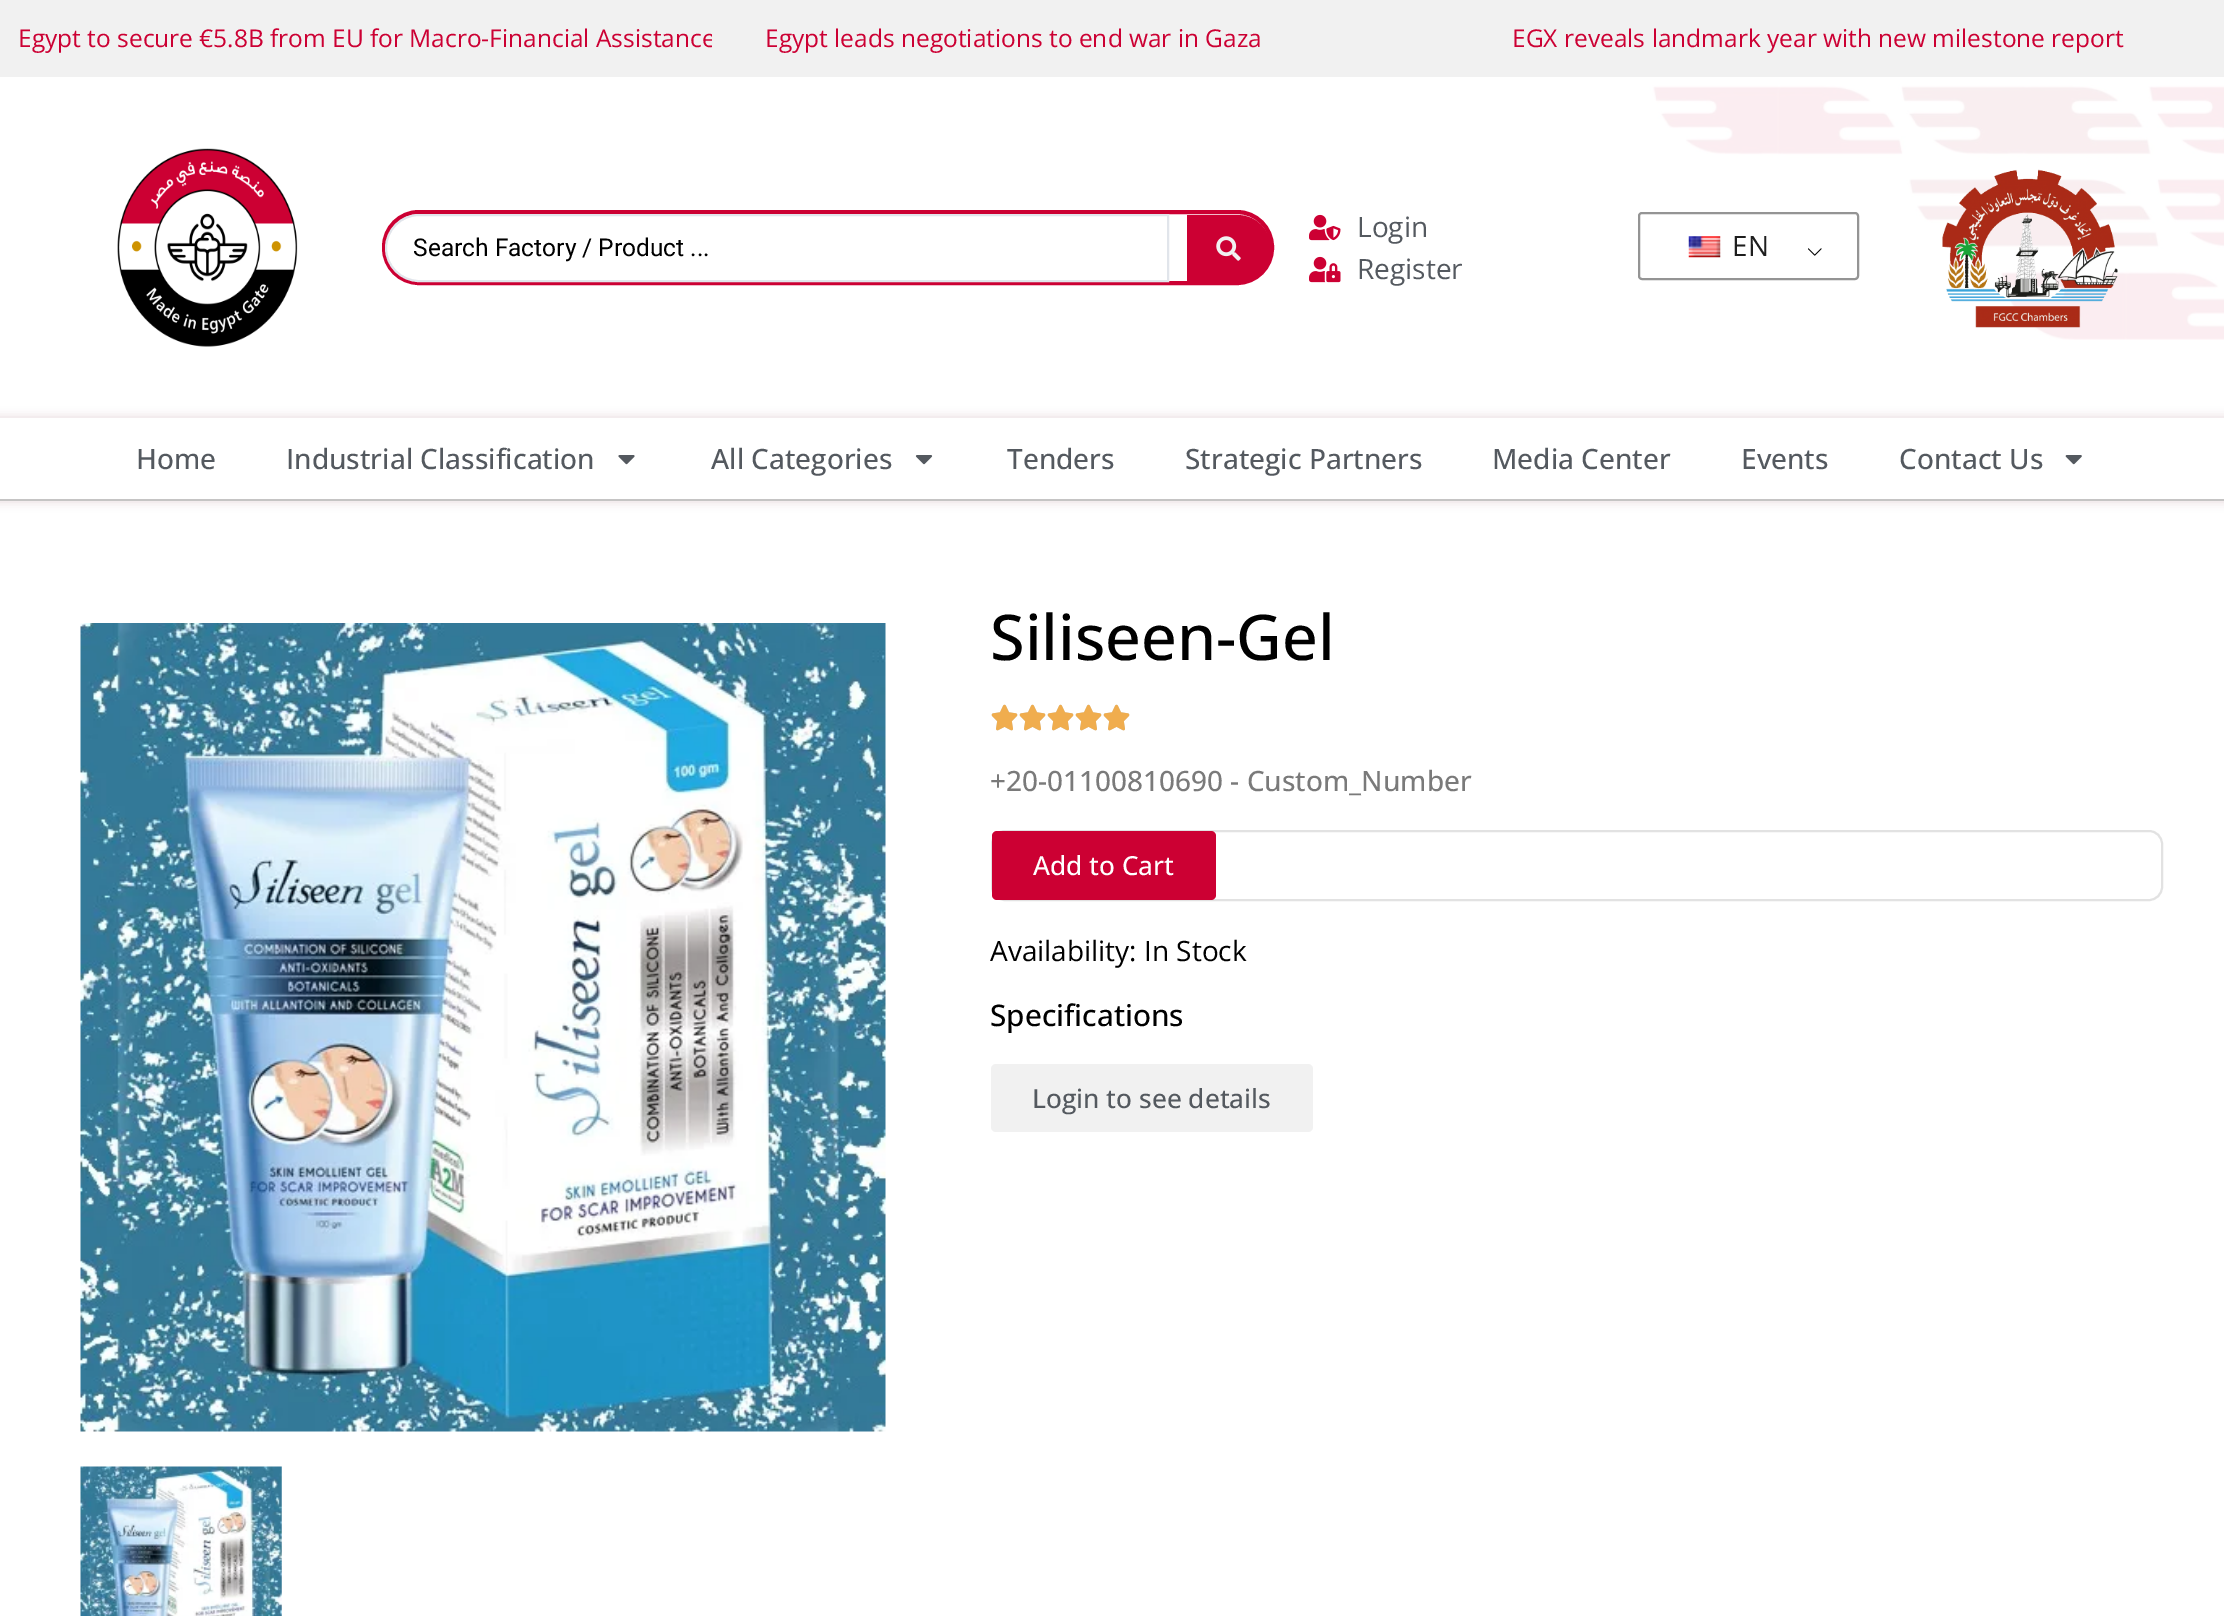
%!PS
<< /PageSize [2224 1616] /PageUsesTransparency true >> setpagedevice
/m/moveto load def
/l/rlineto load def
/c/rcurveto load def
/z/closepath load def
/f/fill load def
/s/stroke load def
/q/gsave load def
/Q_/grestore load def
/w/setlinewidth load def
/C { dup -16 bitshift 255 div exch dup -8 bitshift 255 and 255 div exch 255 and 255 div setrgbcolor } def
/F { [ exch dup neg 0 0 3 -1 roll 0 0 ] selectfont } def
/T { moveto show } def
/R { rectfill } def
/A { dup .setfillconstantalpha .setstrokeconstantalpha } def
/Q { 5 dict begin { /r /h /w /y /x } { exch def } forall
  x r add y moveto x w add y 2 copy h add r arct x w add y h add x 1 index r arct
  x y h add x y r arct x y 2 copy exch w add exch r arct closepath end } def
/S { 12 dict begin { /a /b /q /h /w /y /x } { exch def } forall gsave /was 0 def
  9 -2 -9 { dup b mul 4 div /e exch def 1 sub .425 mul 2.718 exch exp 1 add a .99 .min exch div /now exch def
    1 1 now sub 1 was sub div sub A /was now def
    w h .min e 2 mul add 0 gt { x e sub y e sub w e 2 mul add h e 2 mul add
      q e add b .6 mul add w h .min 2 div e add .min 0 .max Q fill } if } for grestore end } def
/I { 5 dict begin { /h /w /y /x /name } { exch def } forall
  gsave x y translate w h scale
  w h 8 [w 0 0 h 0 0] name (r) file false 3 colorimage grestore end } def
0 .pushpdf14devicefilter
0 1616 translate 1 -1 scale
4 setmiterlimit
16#FFFFFF C
0 0 2224 1616 R
16#F1F1F1 C
0 0 2224 77 R
q
18 18 694 42 rectclip
/OpenSans-Regular 24.5 F
16#CC0033 C
(Egypt to secure €5.8B from EU for Macro-Financial Assistance) 18 47 T
Q_
/OpenSans-Regular 24.5 F
16#CC0033 C
(Egypt leads negotiations to end war in Gaza) 765 47 T
(EGX reveals landmark year with new milestone report) 1512 47 T
(1.rgb) 1648 83 576 257 I
(2.rgb) 117 148 181 199 I
4 w
384 212 888 71 35 Q s
16#FFFFFF C
419 215 m 749 0 l 0 66 l -749 0 l -18 0 -33 -15 -33 -33 c 0 -18 15 -33 33 -33 c z q f Q_
16#E1E5EB C
2 w
s
/Roboto-Regular 24.5 F
16#000000 C
(Search Factory / Product ...) 413 256 T
16#CC0033 C
1189 217 m 48.5 0 l 17.5 0 31.5 14 31.5 31.5 c 0 17.5 -14 31.5 -31.5 31.5 c -48.5 0 l z q f Q_
4 w
s
(3.rgb) 1216 236 25 25 I
(4.rgb) 1309 214 32 27 I
/OpenSans-Regular 28 F
16#54595F C
(Login) 1357 237 T
(5.rgb) 1309 256 32 27 I
(Register) 1357 279 T
(6.rgb) 1808 248 14 8 I
16#949494 C
2 w
1639 213 219 66 3 Q s
(7.rgb) 1688 236 33 22 I
16#1E1E1E C
(EN) 1732 256 T
(8.rgb) 1942 169 176 159 I
q
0 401 m 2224 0 l 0 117 l -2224 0 l z 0 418 m 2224 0 l 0 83 l -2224 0 l z eoclip newpath
16#C096A0 C
-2 417 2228 85 0 5 .36 S
Q_
16#C5C4C4 C
0 499 2224 2 R
/OpenSans-Medium 28 F
16#54595F C
(Home) 136 469 T
(Industrial Classification) 286 469 T
(9.rgb) 618 455 17 10 I
(All Categories) 711 469 T
(10.rgb) 915 455 18 10 I
(Tenders) 1007 469 T
(Strategic Partners) 1185 469 T
(Media Center) 1492 469 T
(Events) 1741 469 T
(Contact Us) 1899 469 T
(11.rgb) 2065 455 17 10 I
(12.rgb) 80 623 806 809 I
(13.rgb) 80 1466 202 150 I
/OpenSans-Medium 63 F
16#000000 C
(Siliseen-Gel) 990 660 T
(14.rgb) 991 704 27 27 I
(15.rgb) 991 704 27 27 I
(14.rgb) 1019 704 27 27 I
(15.rgb) 1019 704 27 27 I
(14.rgb) 1047 704 27 27 I
(15.rgb) 1047 704 27 27 I
(14.rgb) 1075 704 27 27 I
(15.rgb) 1075 704 27 27 I
(14.rgb) 1103 704 27 27 I
(15.rgb) 1103 704 27 27 I
/OpenSans-Medium 28 F
16#7A7A7A C
(+20-01100810690 - Custom_Number) 990 791 T
16#E2E2E2 C
992 831 1170 69 13 Q s
16#CC0033 C
992 831 224 69 5 Q f
/OpenSans-Medium 26.25 F
16#FFFFFF C
(Add to Cart) 1033 875 T
/OpenSans-Regular 28 F
16#000000 C
(Availability: In Stock) 990 961 T
/OpenSans-Medium 29.75 F
(Specifications) 990 1026 T
16#F1F1F1 C
991 1064 322 68 5 Q f
/OpenSans-Medium 26.25 F
16#54595F C
(Login to see details) 1032 1108 T
.poppdf14devicefilter showpage
